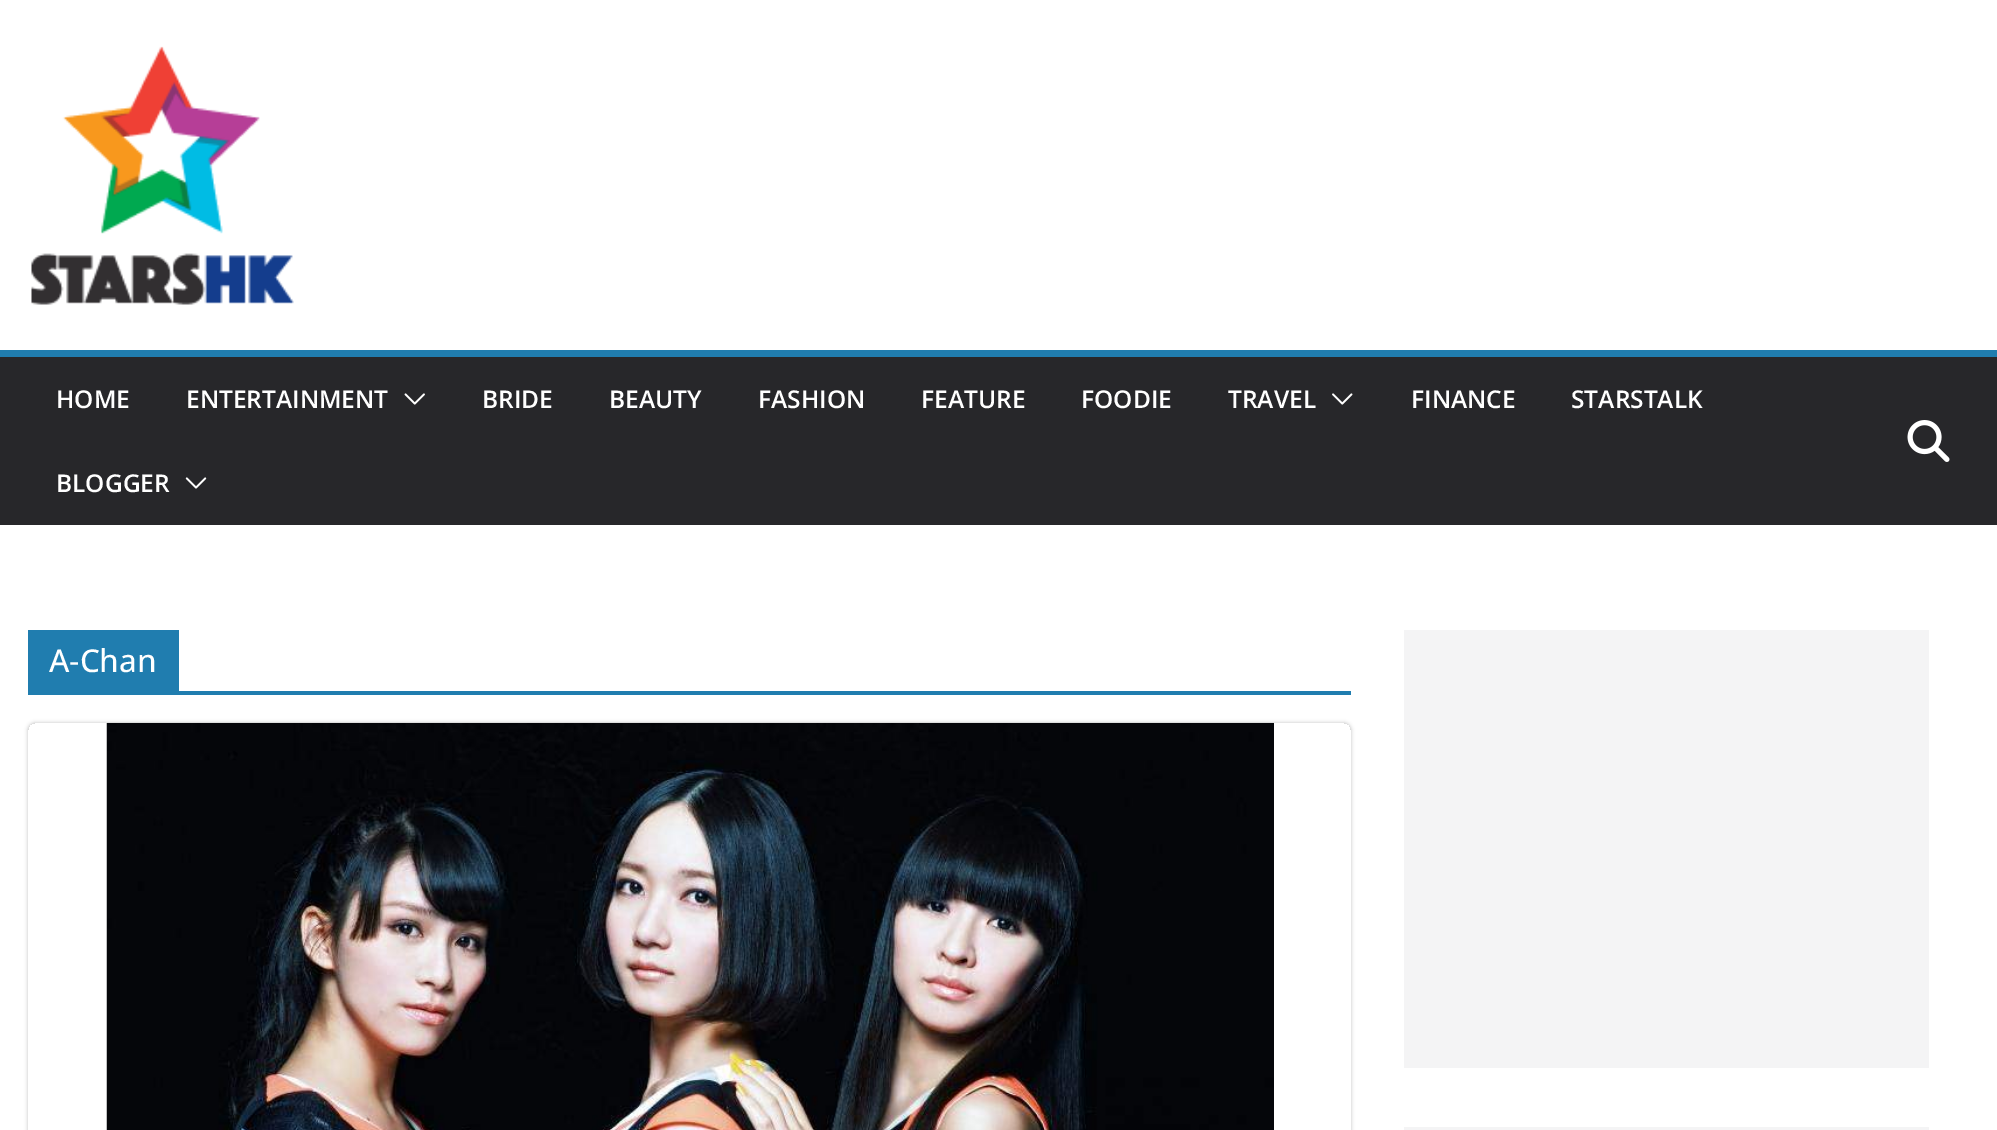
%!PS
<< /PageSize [1997 1130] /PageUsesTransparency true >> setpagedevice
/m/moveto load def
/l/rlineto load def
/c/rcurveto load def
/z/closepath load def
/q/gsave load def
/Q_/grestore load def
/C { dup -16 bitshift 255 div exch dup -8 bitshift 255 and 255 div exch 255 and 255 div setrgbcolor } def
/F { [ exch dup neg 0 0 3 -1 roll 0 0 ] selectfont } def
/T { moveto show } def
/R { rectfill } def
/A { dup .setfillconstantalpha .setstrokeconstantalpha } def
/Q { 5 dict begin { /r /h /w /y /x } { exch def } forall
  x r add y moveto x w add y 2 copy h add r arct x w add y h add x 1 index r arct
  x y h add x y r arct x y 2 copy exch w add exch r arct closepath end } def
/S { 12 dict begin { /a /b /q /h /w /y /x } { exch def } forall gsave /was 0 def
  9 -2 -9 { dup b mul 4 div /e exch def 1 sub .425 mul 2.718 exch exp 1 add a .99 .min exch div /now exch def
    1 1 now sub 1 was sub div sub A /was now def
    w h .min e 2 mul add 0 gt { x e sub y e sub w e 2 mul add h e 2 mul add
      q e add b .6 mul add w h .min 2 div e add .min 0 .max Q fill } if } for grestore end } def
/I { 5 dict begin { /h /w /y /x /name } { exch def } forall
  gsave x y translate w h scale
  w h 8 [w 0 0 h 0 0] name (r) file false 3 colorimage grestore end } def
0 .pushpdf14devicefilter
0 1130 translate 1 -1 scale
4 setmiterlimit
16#FFFFFF C
0 0 1997 1130 R
(1.rgb) 31 46 263 259 I
16#27272A C
0 357 1997 168 R
16#207DAF C
0 350 1997 7 R
/OpenSans-SemiBold 24.5 F
16#FFFFFF C
(HOME) 56 408 T
(ENTERTAINMENT) 186 408 T
(2.rgb) 404 393 21 12 I
(BRIDE) 482 408 T
(BEAUTY) 609 408 T
(FASHION) 758 408 T
(FEATURE) 921 408 T
(FOODIE) 1081 408 T
(TRAVEL) 1228 408 T
(3.rgb) 1332 393 21 12 I
(FINANCE) 1411 408 T
(STARSTALK) 1571 408 T
(BLOGGER) 56 492 T
(4.rgb) 185 477 22 12 I
(5.rgb) 1907 420 43 42 I
16#207DAF C
28 691 1323 4 R
28 630 151 61 R
/OpenSans-Medium 31.5 F
16#FFFFFF C
(A-Chan) 49 672 T
q
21 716 m 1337 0 l 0 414 l -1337 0 l z 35 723 m 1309 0 l 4 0 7 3 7 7 c 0 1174 l 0 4 -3 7 -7 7 c -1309 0 l -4 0 -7 -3 -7 -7 c 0 -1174 l 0 -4 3 -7 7 -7 c z eoclip newpath
16#000000 C
28 723 1323 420 7 2 .24 S
Q_
(6.rgb) 106 722 1168 408 I
16#F4F4F5 C
1404 630 525 438 R
1404 1127 525 3 R
.poppdf14devicefilter showpage
